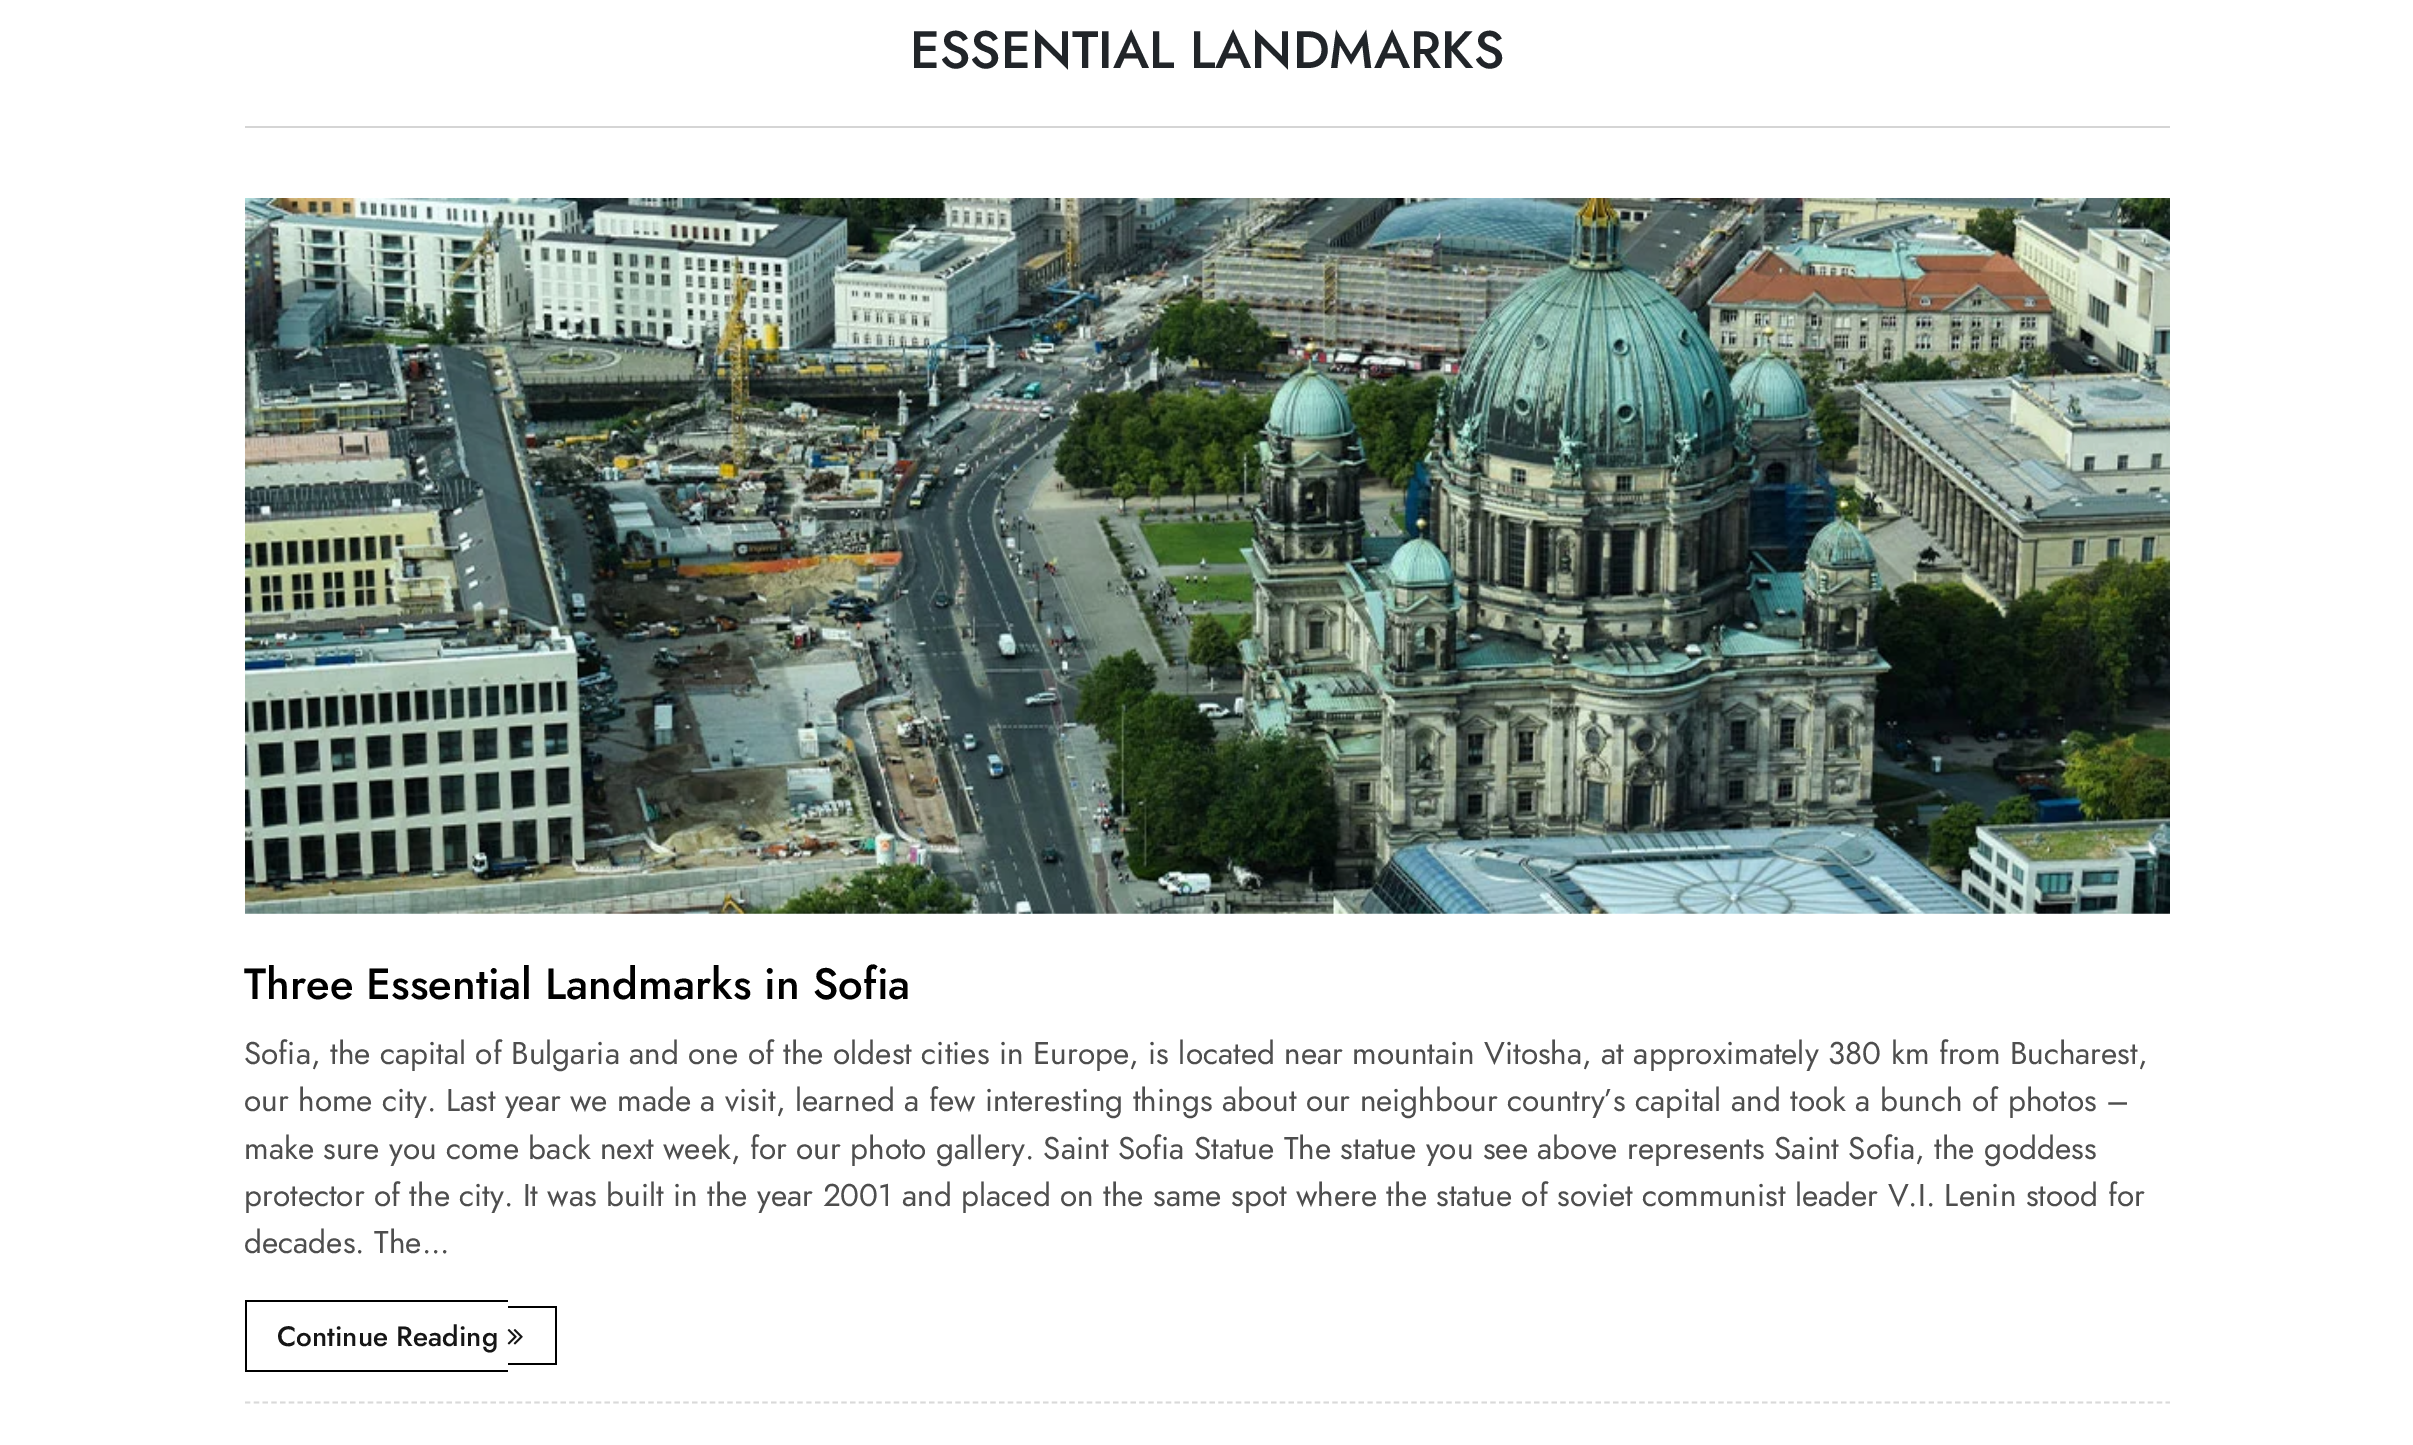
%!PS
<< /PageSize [2413 1445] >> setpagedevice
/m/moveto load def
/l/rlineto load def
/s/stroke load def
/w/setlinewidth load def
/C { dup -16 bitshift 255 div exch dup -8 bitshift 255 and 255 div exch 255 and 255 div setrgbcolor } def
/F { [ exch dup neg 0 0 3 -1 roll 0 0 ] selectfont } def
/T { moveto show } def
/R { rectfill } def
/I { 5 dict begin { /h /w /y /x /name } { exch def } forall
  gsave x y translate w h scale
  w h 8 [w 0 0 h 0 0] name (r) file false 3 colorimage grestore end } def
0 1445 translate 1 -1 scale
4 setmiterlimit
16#FFFFFF C
0 0 2413 1445 R
16#D5D5D5 C
245 126 1925 2 R
/Jost-Medium 52.5 F
16#212529 C
(ESSENTIAL LANDMARKS) 910 68 T
16#D9D9D9 C
1.8 w
[5.25 3.52] 0 setdash
245 1402.5 m 1925 0 l s
(1.rgb) 245 198 1925 716 I
/Jost-Medium 43.75 F
16#000000 C
(Three Essential Landmarks in Sofia) 244 999 T
/Jost-Regular 31.5 F
16#4E4E4E C
(Sofia, the capital of Bulgaria and one of the oldest cities in Europe, is located near mountain Vitosha, at approximately 380 km from Bucharest,) 244 1064 T
(our home city. Last year we made a visit, learned a few interesting things about our neighbour country’s capital and took a bunch of photos –) 244 1111 T
(make sure you come back next week, for our photo gallery. Saint Sofia Statue The statue you see above represents Saint Sofia, the goddess) 244 1159 T
(protector of the city. It was built in the year 2001 and placed on the same spot where the statue of soviet communist leader V.I. Lenin stood for) 244 1206 T
(decades. The...) 244 1253 T
16#000000 C
245 1300 263 2 R
245 1370 263 2 R
245 1300 2 72 R
508 1306 49 2 R
555 1306 2 59 R
508 1363 49 2 R
/Jost-Medium 28 F
16#161616 C
(Continue Reading) 277 1346 T
(2.rgb) 507 1329 16 16 I
showpage
